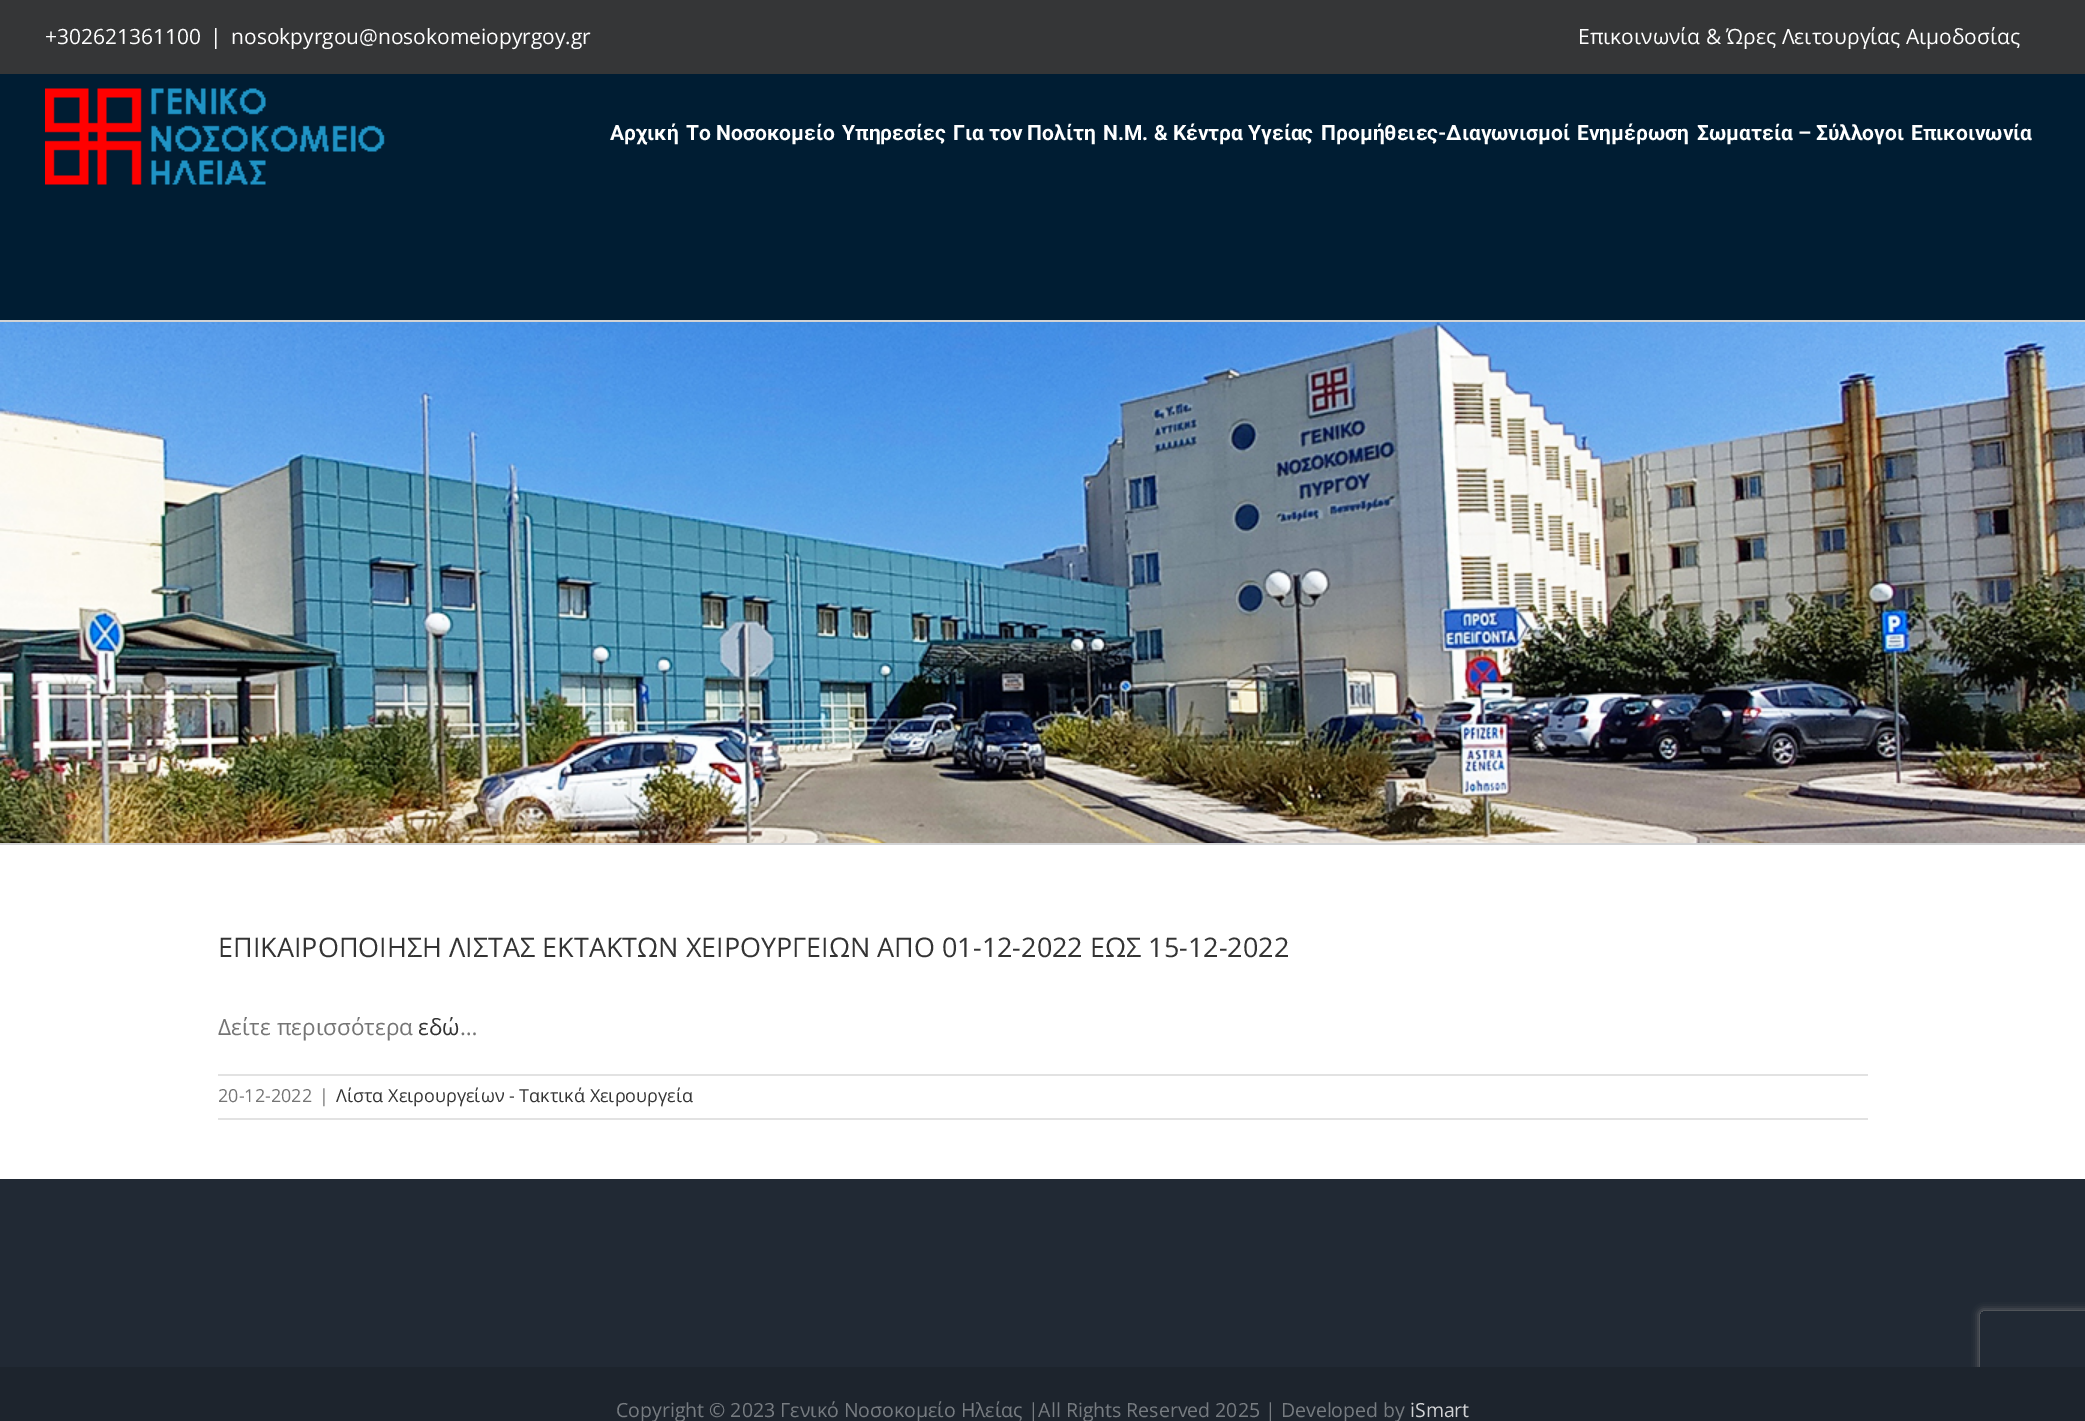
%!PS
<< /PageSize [2085 1421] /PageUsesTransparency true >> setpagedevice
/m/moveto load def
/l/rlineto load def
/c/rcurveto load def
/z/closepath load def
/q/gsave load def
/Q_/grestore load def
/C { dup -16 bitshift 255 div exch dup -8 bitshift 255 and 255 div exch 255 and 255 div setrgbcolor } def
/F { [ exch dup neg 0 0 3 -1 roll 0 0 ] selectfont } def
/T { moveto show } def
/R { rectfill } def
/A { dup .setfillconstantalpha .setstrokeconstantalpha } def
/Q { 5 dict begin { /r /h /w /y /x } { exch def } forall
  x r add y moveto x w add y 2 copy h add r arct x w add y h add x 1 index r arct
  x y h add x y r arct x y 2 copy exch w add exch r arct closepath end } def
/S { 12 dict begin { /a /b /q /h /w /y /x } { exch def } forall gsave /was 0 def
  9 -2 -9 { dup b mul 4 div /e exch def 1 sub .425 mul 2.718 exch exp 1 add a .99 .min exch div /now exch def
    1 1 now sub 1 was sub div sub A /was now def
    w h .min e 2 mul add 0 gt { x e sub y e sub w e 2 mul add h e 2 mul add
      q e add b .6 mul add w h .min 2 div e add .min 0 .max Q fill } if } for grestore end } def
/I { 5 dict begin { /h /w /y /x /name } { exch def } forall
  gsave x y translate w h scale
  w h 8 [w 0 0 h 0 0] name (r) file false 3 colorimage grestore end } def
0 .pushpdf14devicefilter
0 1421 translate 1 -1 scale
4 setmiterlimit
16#FFFFFF C
0 0 2085 1421 R
16#353637 C
0 0 2085 74 R
/OpenSans-Regular 21 F
16#FFFFFF C
(+302621361100) 45 44 T
(|) 210 44 T
(nosokpyrgou@nosokomeiopyrgoy.gr) 231 44 T
(Επικοινωνία & Ώρες Λειτουργίας Αιμοδοσίας) 1578 44 T
16#001D33 C
0 74 2085 246 R
(1.rgb) 45 88 340 97 I
/Roboto-Bold 21 F
16#FFFFFF C
(Αρχική) 610 140 T
(Το Νοσοκομείο) 686 140 T
(Υπηρεσίες) 842 140 T
(Για τον Πολίτη) 953 140 T
(Ν.Μ. & Κέντρα Υγείας) 1103 140 T
(Προμήθειες-Διαγωνισμοί) 1321 140 T
(Ενημέρωση) 1577 140 T
(Σωματεία – Σύλλογοι) 1697 140 T
(Επικοινωνία) 1911 140 T
(2.rgb) 0 322 2085 521 I
16#D2D3D4 C
0 320 2085 2 R
0 843 2085 2 R
/OpenSans-Regular 27 F
16#333333 C
(ΕΠΙΚΑΙΡΟΠΟΙΗΣΗ ΛΙΣΤΑΣ ΕΚΤΑΚΤΩΝ ΧΕΙΡΟΥΡΓΕΙΩΝ ΑΠΟ 01-12-2022 ΕΩΣ 15-12-2022) 218 957 T
/OpenSans-Regular 22.5 F
16#747474 C
(Δείτε περισσότερα) 218 1035 T
16#333333 C
(εδώ) 418 1035 T
16#747474 C
(…) 460 1035 T
16#E2E2E2 C
218 1074 1650 2 R
218 1118 1650 2 R
/OpenSans-Regular 18 F
16#747474 C
(20-12-2022) 218 1102 T
(|) 319 1102 T
16#333333 C
(Λίστα Χειρουργείων - Τακτικά Χειρουργεία) 336 1102 T
16#212934 C
0 1179 2085 188 R
q
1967 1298 m 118 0 l 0 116 l -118 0 l z 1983 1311 m 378 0 l 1.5 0 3 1.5 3 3 c 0 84 l 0 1.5 -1.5 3 -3 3 c -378 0 l -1.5 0 -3 -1.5 -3 -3 c 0 -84 l 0 -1.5 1.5 -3 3 -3 c z eoclip newpath
16#808080 C
1980 1311 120 90 3 4 1 S
Q_
16#1D242D C
0 1367 2085 54 R
/OpenSans-Regular 19.5 F
16#777C81 C
(Copyright © 2023 Γενικό Νοσοκομείο Ηλείας |All Rights Reserved 2025 | Developed by) 616 1417 T
16#D2D3D5 C
(iSmart) 1410 1417 T
.poppdf14devicefilter showpage
